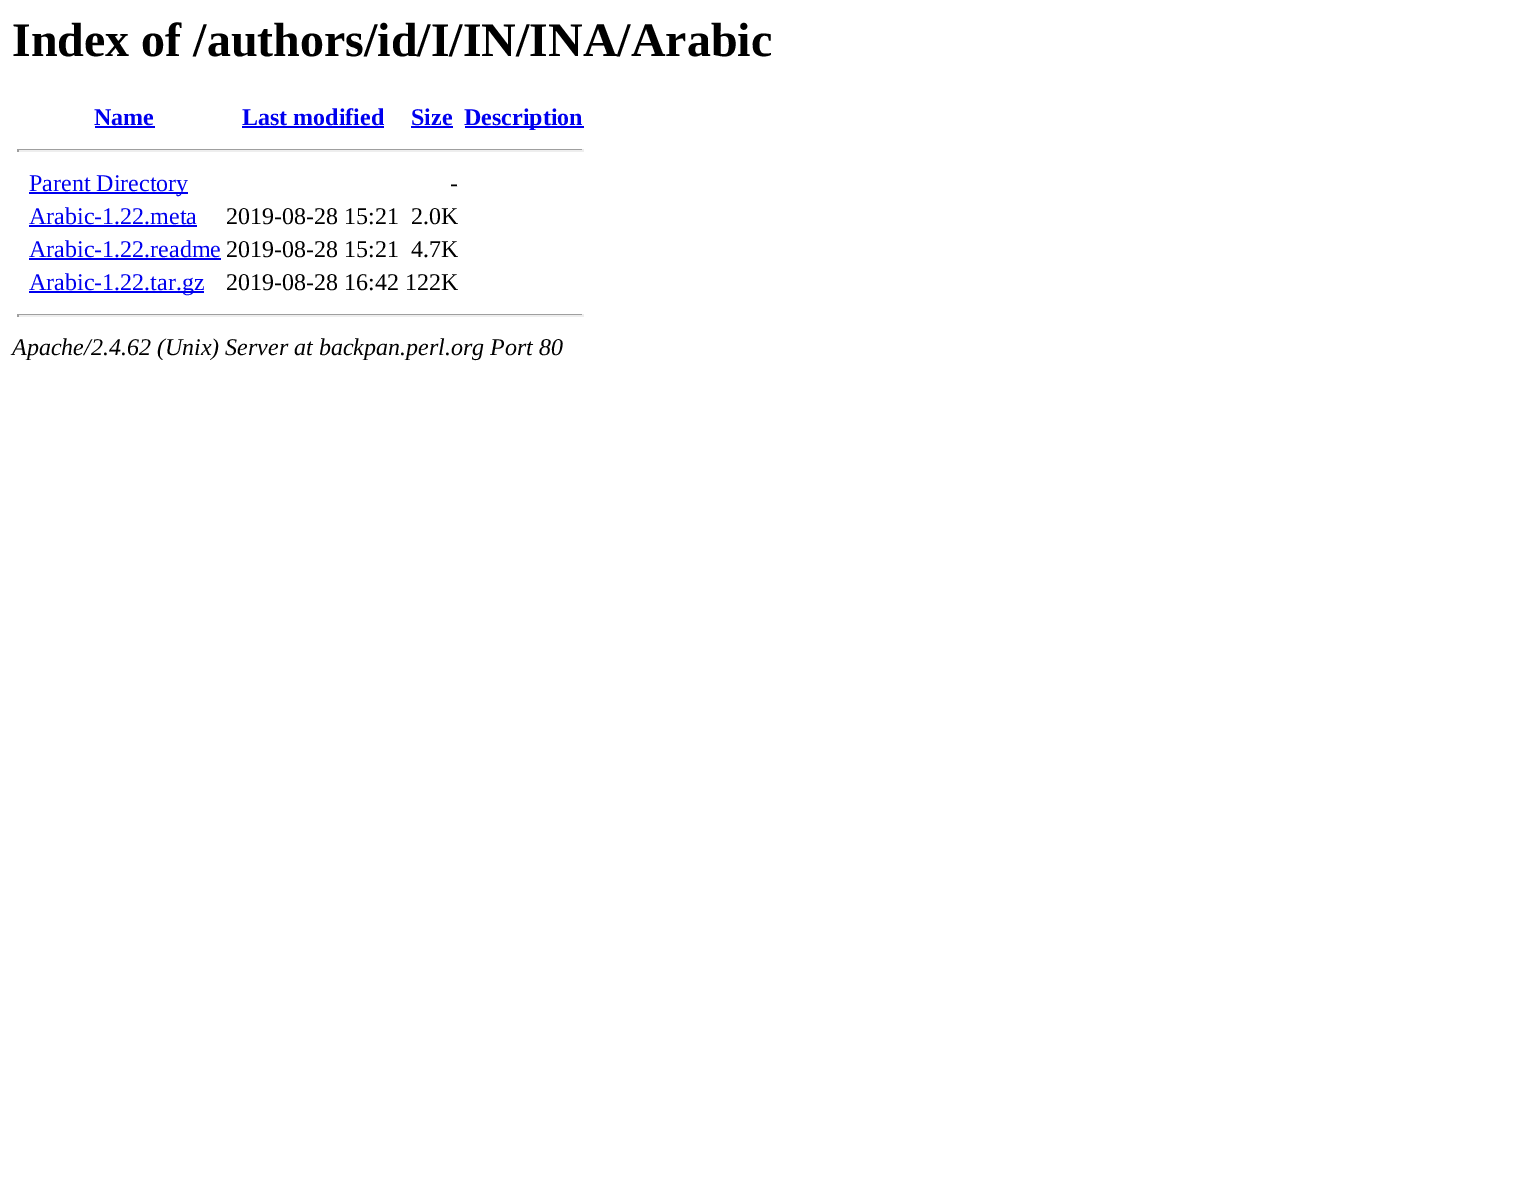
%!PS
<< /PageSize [1533 1177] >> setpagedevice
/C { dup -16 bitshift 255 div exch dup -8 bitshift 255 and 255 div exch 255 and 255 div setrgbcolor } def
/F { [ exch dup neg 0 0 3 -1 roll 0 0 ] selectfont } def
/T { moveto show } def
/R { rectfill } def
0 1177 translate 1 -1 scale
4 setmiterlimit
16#FFFFFF C
0 0 1533 1177 R
/LiberationSerif-Bold 48 F
16#000000 C
(Index of /authors/id/I/IN/INA/Arabic) 12 56 T
/LiberationSerif-Bold 24 F
16#0000EE C
(Name) 94 125 T
95 126 60 2 R
(Last modified) 242 125 T
242 126 142 2 R
(Size) 411 125 T
411 126 42 2 R
465 126 119 2 R
(Description) 464 125 T
16#9F9F9F C
17 149 567 1 R
16#EEEEEE C
582 149 2 3 R
17 150 567 2 R
16#9F9F9F C
17 149 2 3 R
16#0000EE C
29 192 159 2 R
/LiberationSerif-Regular 24 F
(Parent Directory) 29 191 T
16#000000 C
(-) 450 191 T
16#0000EE C
(Arabic-1.22.meta) 29 224 T
29 225 168 2 R
16#000000 C
(2019-08-28 15:21) 226 224 T
(2.0K) 411 224 T
16#0000EE C
(Arabic-1.22.readme) 29 257 T
29 258 192 2 R
16#000000 C
(2019-08-28 15:21) 226 257 T
(4.7K) 411 257 T
16#0000EE C
29 291 175 2 R
(Arabic-1.22.tar.gz) 29 290 T
16#000000 C
(2019-08-28 16:42 122K) 226 290 T
16#9F9F9F C
17 314 567 1 R
16#EEEEEE C
582 314 2 3 R
17 315 567 2 R
16#9F9F9F C
17 314 2 3 R
/LiberationSerif-Italic 24 F
16#000000 C
(Apache/2.4.62 \(Unix\) Server at backpan.perl.org Port 80) 12 355 T
showpage
